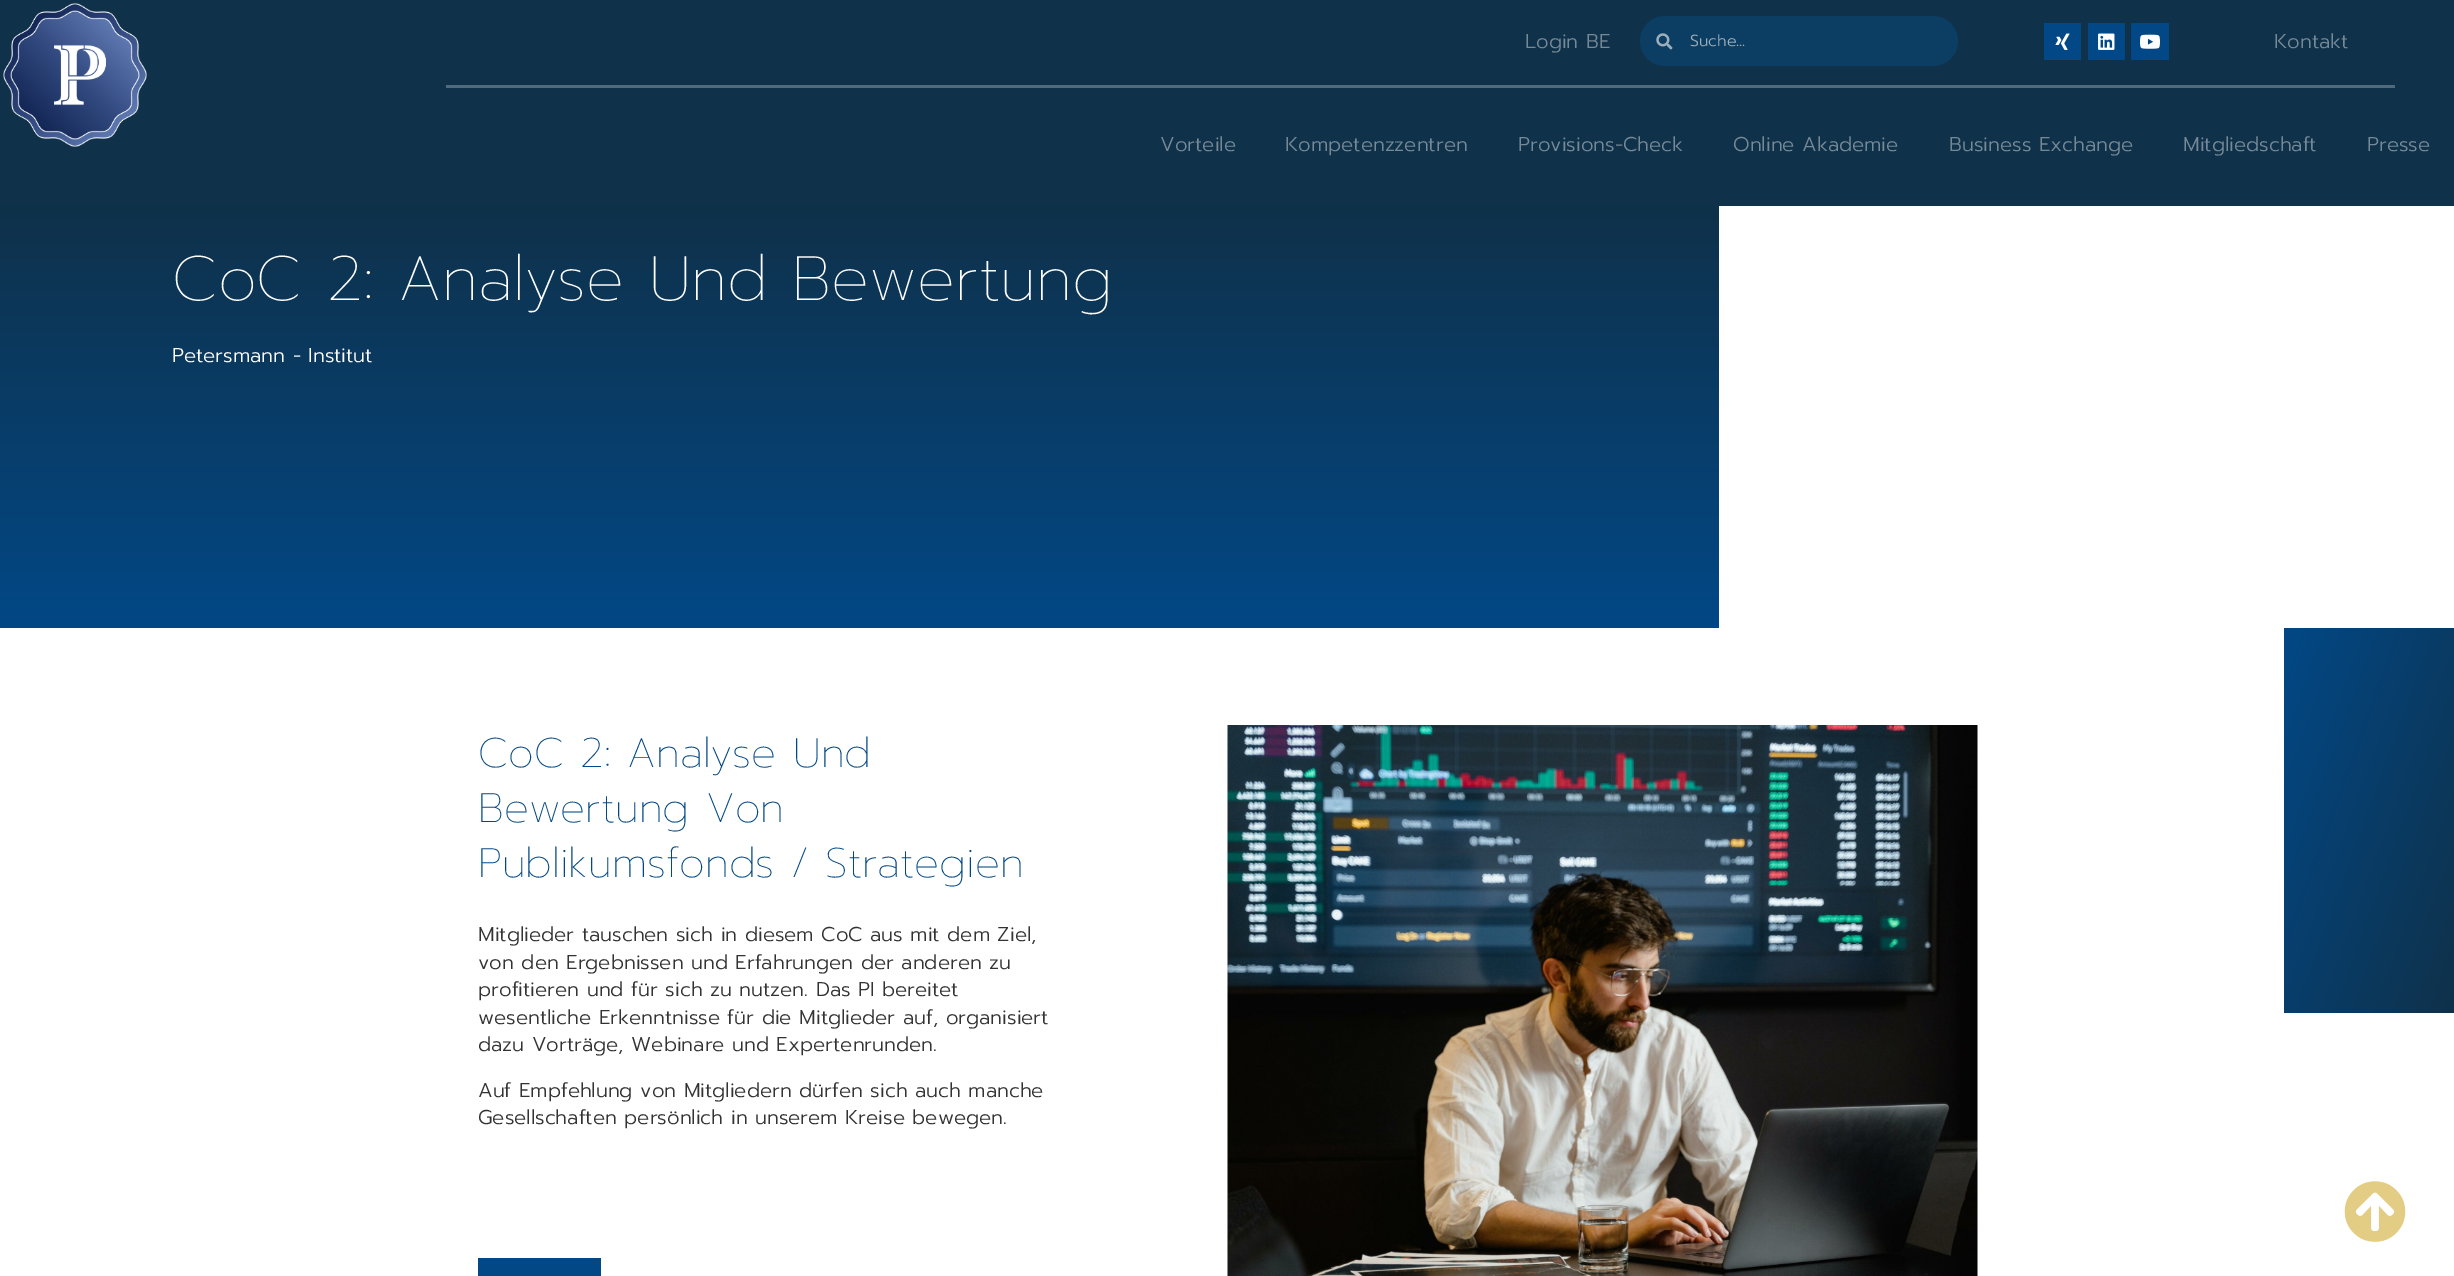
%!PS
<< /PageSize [2454 1276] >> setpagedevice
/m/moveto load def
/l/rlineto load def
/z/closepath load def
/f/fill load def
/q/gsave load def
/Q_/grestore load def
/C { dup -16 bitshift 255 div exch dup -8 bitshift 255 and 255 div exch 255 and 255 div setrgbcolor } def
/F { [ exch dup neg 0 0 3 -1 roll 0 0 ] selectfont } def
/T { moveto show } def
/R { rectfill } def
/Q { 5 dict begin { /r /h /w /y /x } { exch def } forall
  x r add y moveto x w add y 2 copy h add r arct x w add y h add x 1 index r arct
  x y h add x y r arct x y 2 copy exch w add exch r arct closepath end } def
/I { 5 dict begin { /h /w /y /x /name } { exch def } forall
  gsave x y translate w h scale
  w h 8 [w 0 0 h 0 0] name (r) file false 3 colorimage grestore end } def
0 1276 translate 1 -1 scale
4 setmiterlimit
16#FFFFFF C
0 0 2454 1276 R
16#0F314A C
0 0 2454 206 R
(1.rgb) 3 3 144 144 I
/Prompt-Light 20 F
16#768997 C
(Login BE) 1525 48 T
16#0C3D62 C
1640 16 318 50 25 Q f
(2.rgb) 1656 33 17 17 I
/Prompt-Light 16 F
16#9BAEBA C
(Suche...) 1690 46 T
16#024886 C
2044 23 37 37 R
(3.rgb) 2055 33 15 17 I
2088 23 37 37 R
(4.rgb) 2098 33 17 17 I
2131 23 38 37 R
(5.rgb) 2140 34 20 15 I
/Prompt-Light 20 F
16#768997 C
(Kontakt) 2274 48 T
(6.rgb) 2344 1181 62 61 I
16#50697B C
446 85 1949 3 R
16#768997 C
(Vorteile) 1160 151 T
(Kompetenzzentren) 1285 151 T
(Provisions-Check) 1518 151 T
(Online Akademie) 1733 151 T
(Business Exchange) 1949 151 T
(Mitgliedschaft) 2183 151 T
(Presse) 2367 151 T
q 0 206 m 1719 0 l 0 422 l -1719 0 l z clip newpath
<< /ShadingType 2 /ColorSpace /DeviceRGB /Coords [859 206 859 628] /Extend [true true] /Function << /FunctionType 2 /Domain [0 1] /C0 [.059 .192 .29] /C1 [.008 .282 .525] /N 1 >> >> shfill Q_
/Prompt-ExtraLight 62.5 F
16#FFFFFF C
(CoC 2: Analyse Und Bewertung) 172 300 T
/Prompt-Light 20 F
(Petersmann - Institut) 172 362 T
q 2284 628 m 170 0 l 0 385 l -170 0 l z clip newpath
<< /ShadingType 2 /ColorSpace /DeviceRGB /Coords [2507 870 2232 770] /Extend [true true] /Function << /FunctionType 2 /Domain [0 1] /C0 [.059 .192 .29] /C1 [.008 .282 .525] /N 1 >> >> shfill Q_
/Prompt-ExtraLight 41.25 F
16#024886 C
(CoC 2: Analyse Und) 478 767 T
(Bewertung Von) 478 822 T
(Publikumsfonds / Strategien) 478 877 T
/Prompt-Light 20 F
16#333333 C
(Mitglieder tauschen sich in diesem CoC aus mit dem Ziel,) 478 941 T
(von den Ergebnissen und Erfahrungen der anderen zu) 478 969 T
(profitieren und für sich zu nutzen. Das PI bereitet) 478 996 T
(wesentliche Erkenntnisse für die Mitglieder auf, organisiert) 478 1024 T
(dazu Vorträge, Webinare und Expertenrunden.) 478 1051 T
(Auf Empfehlung von Mitgliedern dürfen sich auch manche) 478 1097 T
(Gesellschaften persönlich in unserem Kreise bewegen.) 478 1124 T
16#024886 C
478 1258 123 18 R
(7.rgb) 1227 725 751 551 I
showpage
